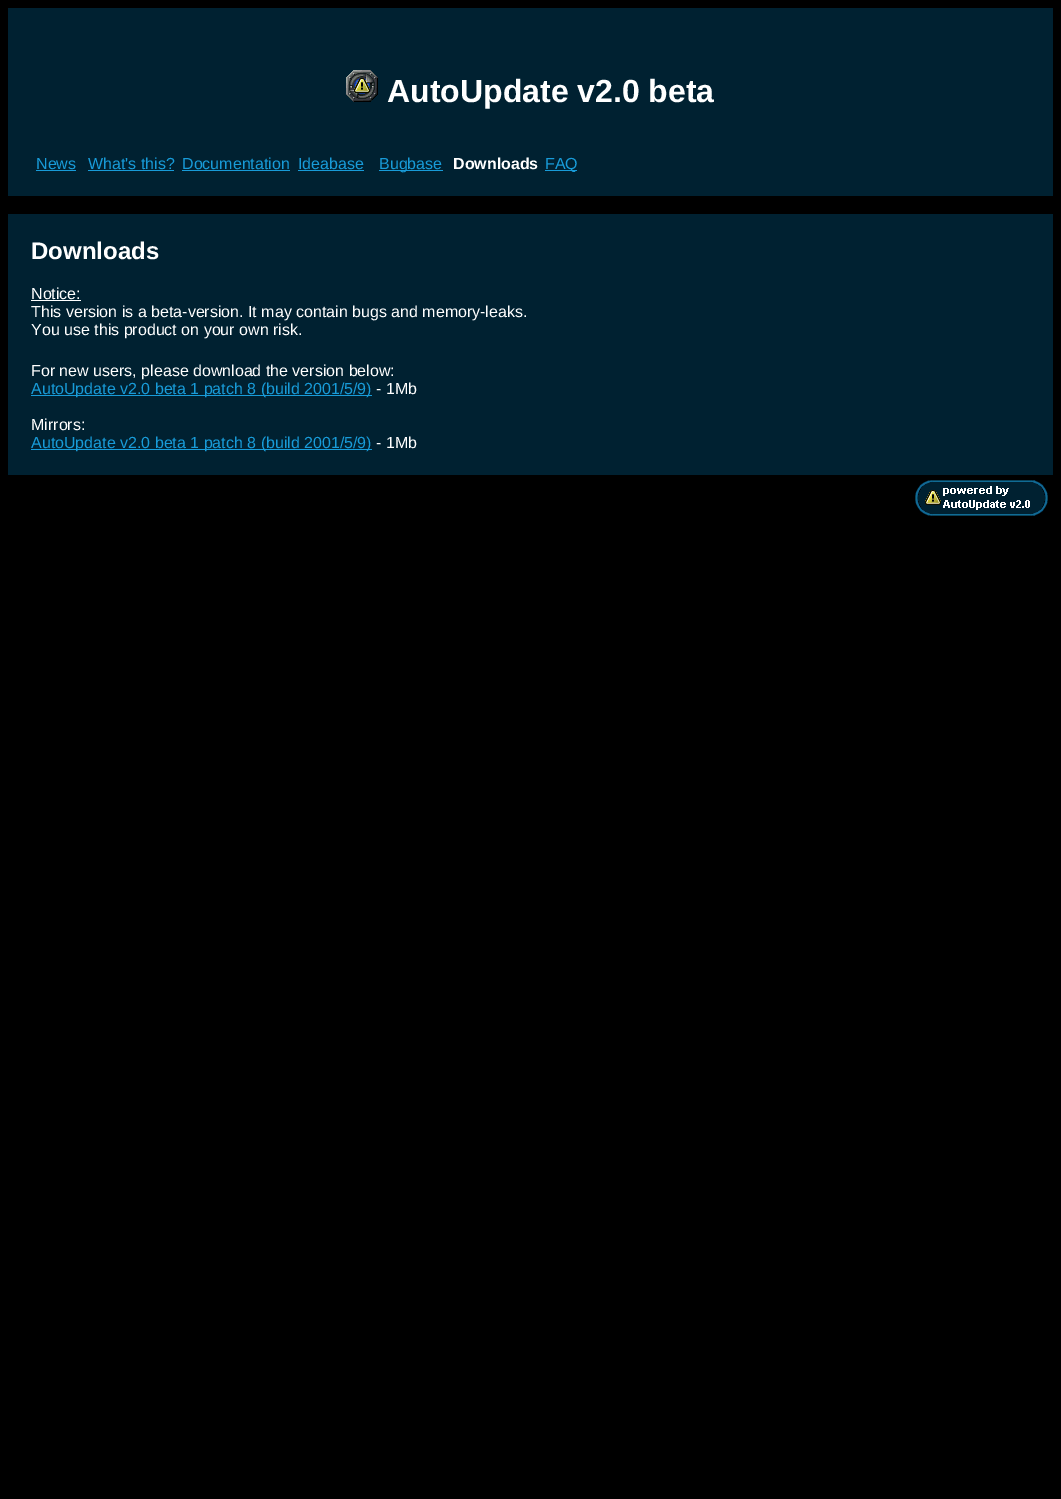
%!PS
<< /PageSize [1061 1499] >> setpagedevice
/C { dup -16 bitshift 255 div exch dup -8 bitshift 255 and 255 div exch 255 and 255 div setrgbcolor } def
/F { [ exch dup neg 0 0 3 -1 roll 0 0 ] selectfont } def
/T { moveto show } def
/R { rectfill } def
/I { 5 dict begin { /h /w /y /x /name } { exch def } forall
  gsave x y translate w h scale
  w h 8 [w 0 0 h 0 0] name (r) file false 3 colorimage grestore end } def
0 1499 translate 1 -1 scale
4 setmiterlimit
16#000000 C
0 0 1061 1499 R
16#002131 C
8 8 1045 188 R
(1.rgb) 346 70 32 32 I
/LiberationSans-Bold 32 F
16#FFFFFF C
(AutoUpdate v2.0 beta) 387 102 T
/LiberationSans-Regular 16 F
16#189BD8 C
(News) 36 169 T
36 170 40 1 R
(What's this?) 88 169 T
88 170 86 1 R
(Documentation) 182 169 T
182 170 108 1 R
(Ideabase) 298 169 T
298 170 66 1 R
379 170 64 1 R
(Bugbase) 379 169 T
/LiberationSans-Bold 16 F
16#FFFFFF C
(Downloads) 453 169 T
16#189BD8 C
545 170 32 1 R
/LiberationSans-Regular 16 F
(FAQ) 545 169 T
16#002131 C
8 214 1045 261 R
/LiberationSans-Bold 24 F
16#FFFFFF C
(Downloads) 31 259 T
/LiberationSans-Regular 16 F
(Notice:) 31 299 T
31 300 50 1 R
(This version is a beta-version. It may contain bugs and memory-leaks.) 31 317 T
(You use this product on your own risk.) 31 335 T
(For new users, please download the version below:) 31 376 T
16#189BD8 C
31 395 341 1 R
(AutoUpdate v2.0 beta 1 patch 8 \(build 2001/5/9\)) 31 394 T
16#FFFFFF C
(- 1Mb) 376 394 T
(Mirrors:) 31 430 T
16#189BD8 C
31 449 341 1 R
(AutoUpdate v2.0 beta 1 patch 8 \(build 2001/5/9\)) 31 448 T
16#FFFFFF C
(- 1Mb) 376 448 T
(2.rgb) 915 480 133 36 I
showpage
